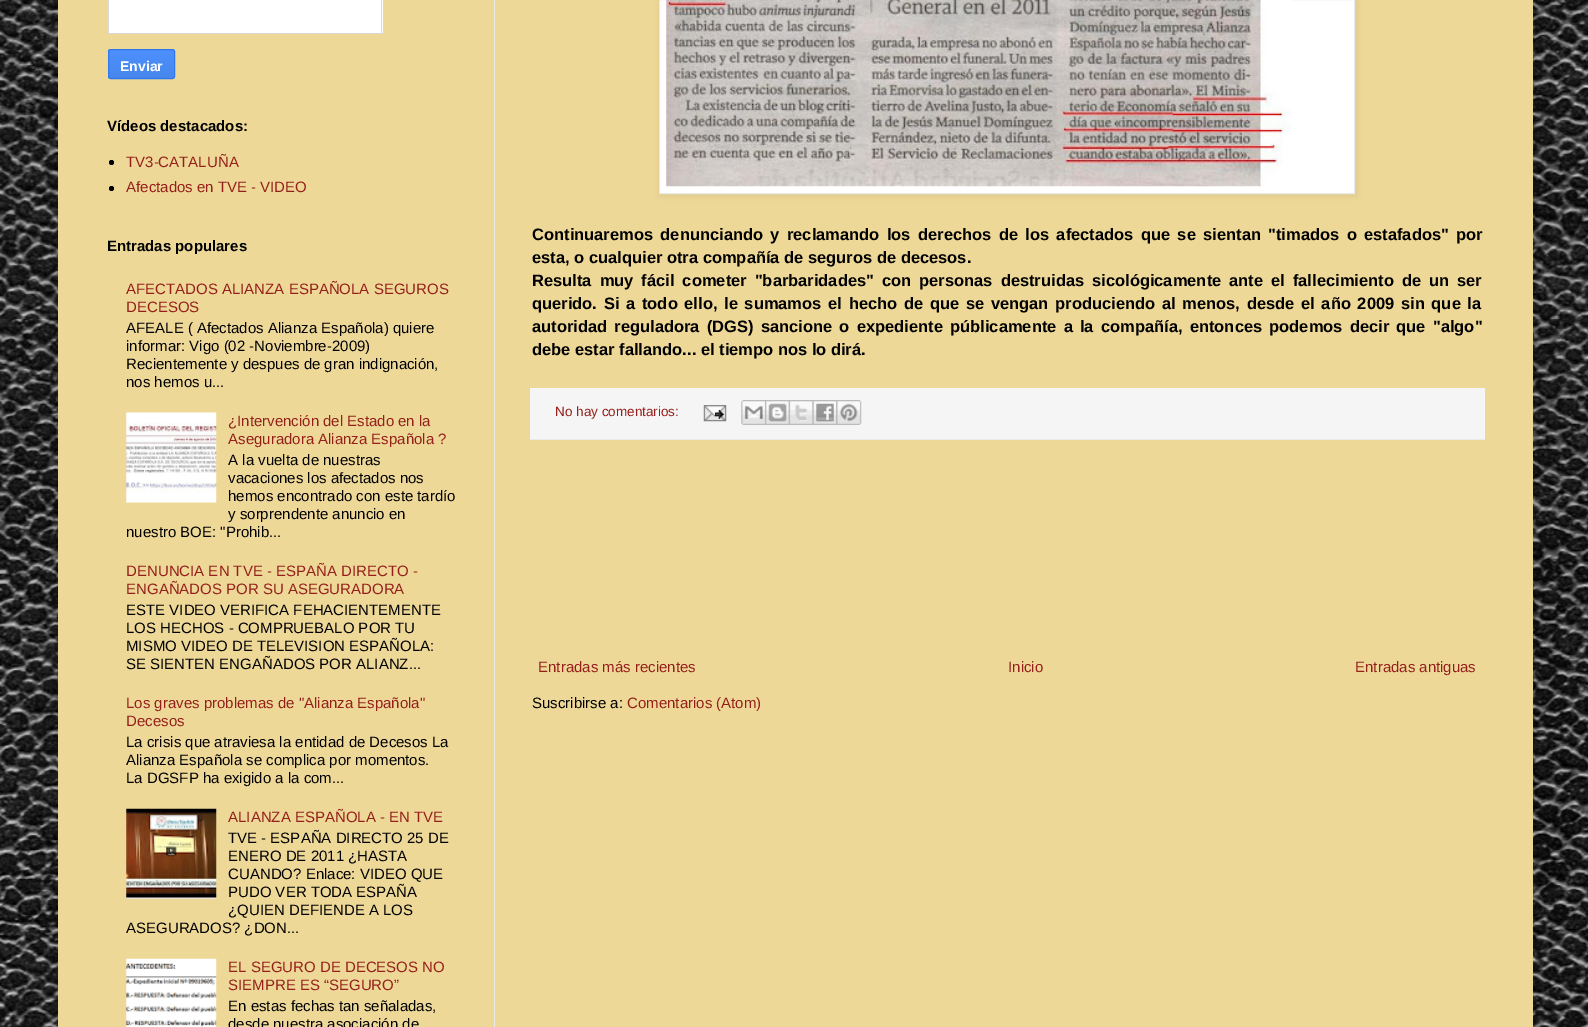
%!PS
<< /PageSize [1588 1027] /PageUsesTransparency true >> setpagedevice
/m/moveto load def
/l/rlineto load def
/z/closepath load def
/f/fill load def
/s/stroke load def
/q/gsave load def
/Q_/grestore load def
/C { dup -16 bitshift 255 div exch dup -8 bitshift 255 and 255 div exch 255 and 255 div setrgbcolor } def
/F { [ exch dup neg 0 0 3 -1 roll 0 0 ] selectfont } def
/T { moveto show } def
/R { rectfill } def
/A { dup .setfillconstantalpha .setstrokeconstantalpha } def
/O { newpath 0 360 arc closepath } def
/Q { 5 dict begin { /r /h /w /y /x } { exch def } forall
  x r add y moveto x w add y 2 copy h add r arct x w add y h add x 1 index r arct
  x y h add x y r arct x y 2 copy exch w add exch r arct closepath end } def
/S { 12 dict begin { /a /b /q /h /w /y /x } { exch def } forall gsave /was 0 def
  9 -2 -9 { dup b mul 4 div /e exch def 1 sub .425 mul 2.718 exch exp 1 add a .99 .min exch div /now exch def
    1 1 now sub 1 was sub div sub A /was now def
    w h .min e 2 mul add 0 gt { x e sub y e sub w e 2 mul add h e 2 mul add
      q e add b .6 mul add w h .min 2 div e add .min 0 .max Q fill } if } for grestore end } def
/I { 5 dict begin { /h /w /y /x /name } { exch def } forall
  gsave x y translate w h scale
  w h 8 [w 0 0 h 0 0] name (r) file false 3 colorimage grestore end } def
0 .pushpdf14devicefilter
0 1027 translate 1 -1 scale
4 setmiterlimit
16#FFFFFF C
0 0 1588 1027 R
(1.rgb) 0 0 1588 1027 I
16#000000 C
58 -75 1475 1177 0 25 .15 S
16#EED898 C
58 0 1475 1027 R
16#EAEAEA C
494 0 1 1027 R
16#FFFFFF C
109 0 274 33 R
16#D9D9D9 C
381 0 1 34 R
108 33 275 1 R
108 0 1 34 R
q
108 49 67 30 2.5 Q clip newpath
q 108 50 m 67 0 l 0 28 l -67 0 l z clip newpath
<< /ShadingType 2 /ColorSpace /DeviceRGB /Coords [141 50 141 78] /Extend [true true] /Function << /FunctionType 2 /Domain [0 1] /C0 [.302 .565 .996] /C1 [.278 .529 .929] /N 1 >> >> shfill Q_
Q_
16#3079ED C
108.5 49.5 66 29 2 Q s
/LiberationSans-Bold 14 F
16#FFFFFF C
(Enviar) 120 71 T
/LiberationSans-Bold 15 F
16#000000 C
(Vídeos destacados:) 107 131 T
111.5 162.5 2.5 O f
/LiberationSans-Regular 15 F
16#95201B C
(TV3-CATALUÑA) 126 167 T
16#000000 C
111.5 188.5 2.5 O f
16#95201B C
(Afectados en TVE - VIDEO) 126 192 T
/LiberationSans-Bold 15 F
16#000000 C
(Entradas populares) 107 251 T
/LiberationSans-Regular 15 F
16#95201B C
(AFECTADOS ALIANZA ESPAÑOLA SEGUROS) 126 294 T
(DECESOS) 126 312 T
16#000000 C
(AFEALE \( Afectados Alianza Española\) quiere) 126 333 T
(informar: Vigo \(02 -Noviembre-2009\)) 126 351 T
(Recientemente y despues de gran indignación,) 126 369 T
(nos hemos u...) 126 387 T
(2.rgb) 126 412 91 91 I
16#95201B C
(¿Intervención del Estado en la) 228 426 T
(Aseguradora Alianza Española ?) 228 444 T
16#000000 C
(A la vuelta de nuestras) 228 465 T
(vacaciones los afectados nos) 228 483 T
(hemos encontrado con este tardío) 228 501 T
(y sorprendente anuncio en) 228 519 T
(nuestro BOE: "Prohib...) 126 537 T
16#95201B C
(DENUNCIA EN TVE - ESPAÑA DIRECTO -) 126 576 T
(ENGAÑADOS POR SU ASEGURADORA) 126 594 T
16#000000 C
(ESTE VIDEO VERIFICA FEHACIENTEMENTE) 126 615 T
(LOS HECHOS - COMPRUEBALO POR TU) 126 633 T
(MISMO VIDEO DE TELEVISION ESPAÑOLA:) 126 651 T
(SE SIENTEN ENGAÑADOS POR ALIANZ...) 126 669 T
16#95201B C
(Los graves problemas de "Alianza Española") 126 708 T
(Decesos) 126 726 T
16#000000 C
(La crisis que atraviesa la entidad de Decesos La) 126 747 T
(Alianza Española se complica por momentos.) 126 765 T
(La DGSFP ha exigido a la com...) 126 783 T
(3.rgb) 126 808 91 91 I
16#95201B C
(ALIANZA ESPAÑOLA - EN TVE) 228 822 T
16#000000 C
(TVE - ESPAÑA DIRECTO 25 DE) 228 843 T
(ENERO DE 2011 ¿HASTA) 228 861 T
(CUANDO? Enlace: VIDEO QUE) 228 879 T
(PUDO VER TODA ESPAÑA) 228 897 T
(¿QUIEN DEFIENDE A LOS) 228 915 T
(ASEGURADOS? ¿DON...) 126 933 T
(4.rgb) 126 958 91 69 I
16#95201B C
(EL SEGURO DE DECESOS NO) 228 972 T
(SIEMPRE ES “SEGURO”) 228 990 T
16#000000 C
(En estas fechas tan señaladas,) 228 1011 T
(desde nuestra asociación de) 228 1029 T
660 -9 696 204 0 3 .1 S
16#FFFFFF C
659.5 -.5 m 695 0 l 0 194 l -695 0 l z q f Q_
16#EAEAEA C
s
(5.rgb) 666 0 626 187 I
/LiberationSans-Bold 16.5 F
16#000000 C
532 240 m 2.75 0 32 (Continuaremos denunciando y reclamando los derechos de los afectados que se sientan "timados o estafados" por) widthshow
(esta, o cualquier otra compañía de seguros de decesos.) 532 263 T
532 286 m 3.4 0 32 (Resulta muy fácil cometer "barbaridades" con personas destruidas sicológicamente ante el fallecimiento de un ser) widthshow
532 309 m 2.1 0 32 (querido. Si a todo ello, le sumamos el hecho de que se vengan produciendo al menos, desde el año 2009 sin que la) widthshow
532 332 m 2.6 0 32 (autoridad reguladora \(DGS\) sancione o expediente públicamente a la compañía, entonces podemos decir que "algo") widthshow
(debe estar fallando... el tiempo nos lo dirá.) 532 355 T
16#F5F5F5 C
530 388 955 51 R
16#EAEAEA C
530 439 955 1 R
/LiberationSans-Regular 13.5 F
16#95201B C
(No hay comentarios:) 555 416 T
(6.rgb) 703 405 24 17 I
(7.rgb) 741 400 24 25 I
(8.rgb) 765 400 24 25 I
(9.rgb) 788 400 25 25 I
(10.rgb) 812 400 25 25 I
(11.rgb) 836 400 26 25 I
/LiberationSans-Regular 15 F
(Entradas más recientes) 538 672 T
(Inicio) 1008 672 T
(Entradas antiguas) 1355 672 T
16#000000 C
(Suscribirse a:) 532 708 T
16#95201B C
(Comentarios \(Atom\)) 627 708 T
.poppdf14devicefilter showpage
